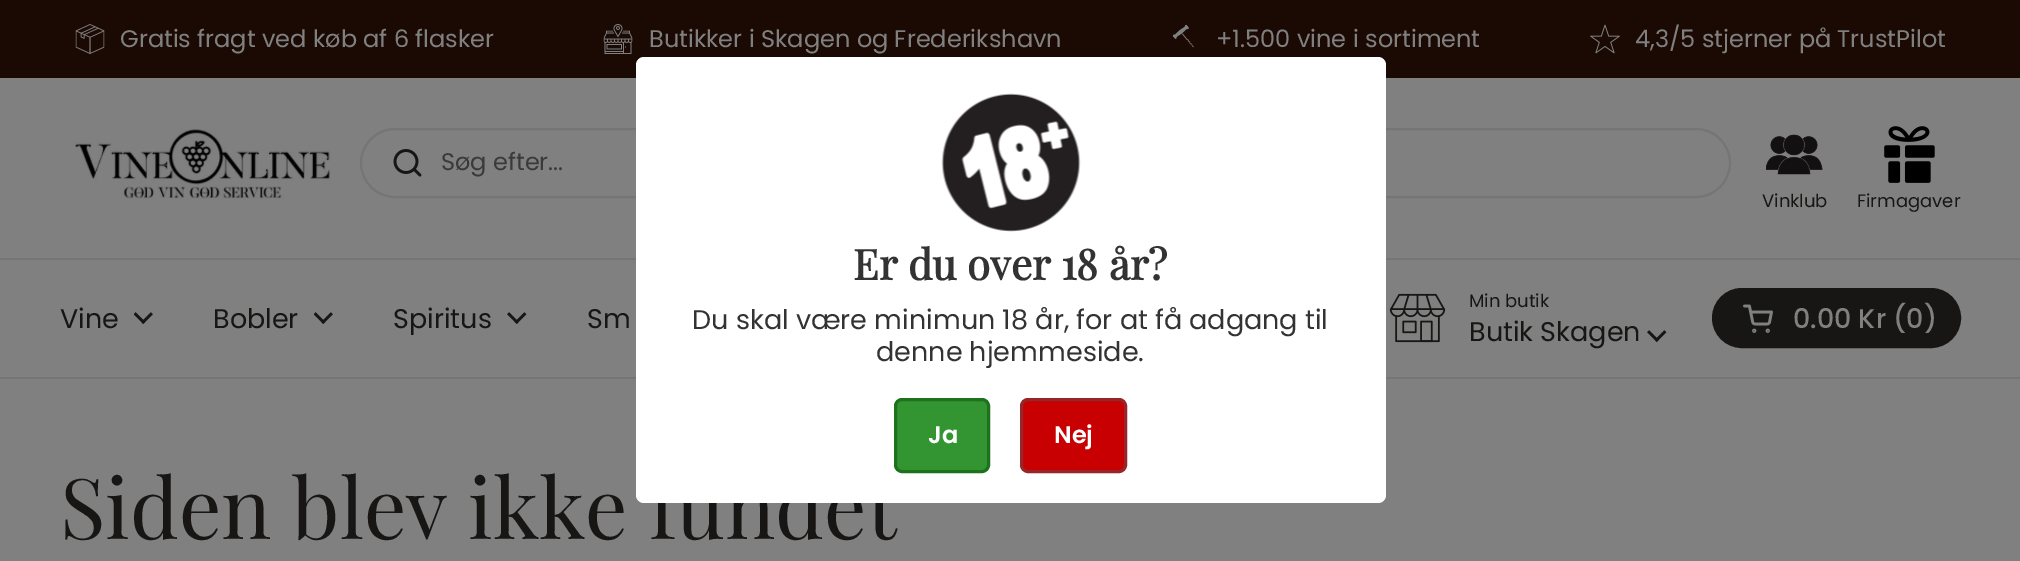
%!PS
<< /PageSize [2020 561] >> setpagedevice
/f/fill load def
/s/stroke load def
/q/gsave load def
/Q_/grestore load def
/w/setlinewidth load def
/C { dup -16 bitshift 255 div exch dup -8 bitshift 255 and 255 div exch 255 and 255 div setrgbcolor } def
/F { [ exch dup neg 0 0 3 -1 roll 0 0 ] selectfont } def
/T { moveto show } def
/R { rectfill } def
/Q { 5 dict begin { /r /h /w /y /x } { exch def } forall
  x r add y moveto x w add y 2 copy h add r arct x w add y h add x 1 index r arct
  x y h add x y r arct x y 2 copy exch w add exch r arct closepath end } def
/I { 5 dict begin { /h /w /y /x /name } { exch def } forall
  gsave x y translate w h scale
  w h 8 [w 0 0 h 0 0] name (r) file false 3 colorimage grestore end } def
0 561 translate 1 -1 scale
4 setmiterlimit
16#808080 C
0 0 2020 561 R
16#1B0A04 C
0 0 2020 78 R
(1.rgb) 75 24 30 30 I
/Poppins-Regular 24 F
16#808080 C
(Gratis fragt ved køb af 6 flasker) 120 47 T
(2.rgb) 603 24 30 30 I
(Butikker i Skagen og Frederikshavn) 649 47 T
(3.rgb) 1172 24 22 24 I
(+1.500 vine i sortiment) 1216 47 T
(4.rgb) 1590 24 30 30 I
(4,3/5 stjerner på TrustPilot) 1635 47 T
16#757575 C
0 258 2020 2 R
(5.rgb) 75 129 255 70 I
2 w
361 129 1369 68 34 Q s
(6.rgb) 393 149 29 28 I
16#3A3A39 C
(Søg efter...) 441 170 T
(7.rgb) 1766 134 57 41 I
/Poppins-Regular 18 F
16#171614 C
(Vinklub) 1762 207 T
(8.rgb) 1884 126 51 57 I
(Firmagaver) 1857 207 T
16#757575 C
0 377 2020 2 R
/Poppins-Regular 27 F
16#171614 C
(Vine) 60 328 T
(9.rgb) 134 312 19 12 I
(Bobler) 213 328 T
(9.rgb) 314 312 19 12 I
(Spiritus) 393 328 T
(10.rgb) 507 312 20 12 I
(Sm) 587 328 T
(11.rgb) 1389 293 57 50 I
/Poppins-Regular 18 F
(Min butik) 1469 307 T
/Poppins-Regular 27 F
(Butik Skagen) 1469 341 T
(10.rgb) 1647 330 20 12 I
1713 289 247 58 29 Q q f Q_
s
(12.rgb) 1743 304 30 29 I
/Poppins-Medium 27 F
16#808080 C
(0.00 Kr \(0\)) 1793 328 T
/PlayfairDisplay-Regular 84 F
16#171614 C
(Siden blev ikke fundet) 60 539 T
16#FFFFFF C
636 57 750 446 8 Q f
(13.rgb) 941 93 140 139 I
/PlayfairDisplay-Bold 42 F
16#333333 C
(Er du over 18 år?) 853 280 T
/Poppins-Regular 27 F
(Du skal være minimun 18 år, for at få adgang til) 692 329 T
(denne hjemmeside.) 876 361 T
16#339532 C
895.5 399.5 93 72 6.5 Q q f Q_
16#1E711D C
3 w
s
/Poppins-SemiBold 24 F
16#FFFFFF C
(Ja) 928 443 T
16#C80002 C
1021.5 399.5 104 72 6.5 Q q f Q_
16#962627 C
s
16#FFFFFF C
(Nej) 1054 443 T
showpage
